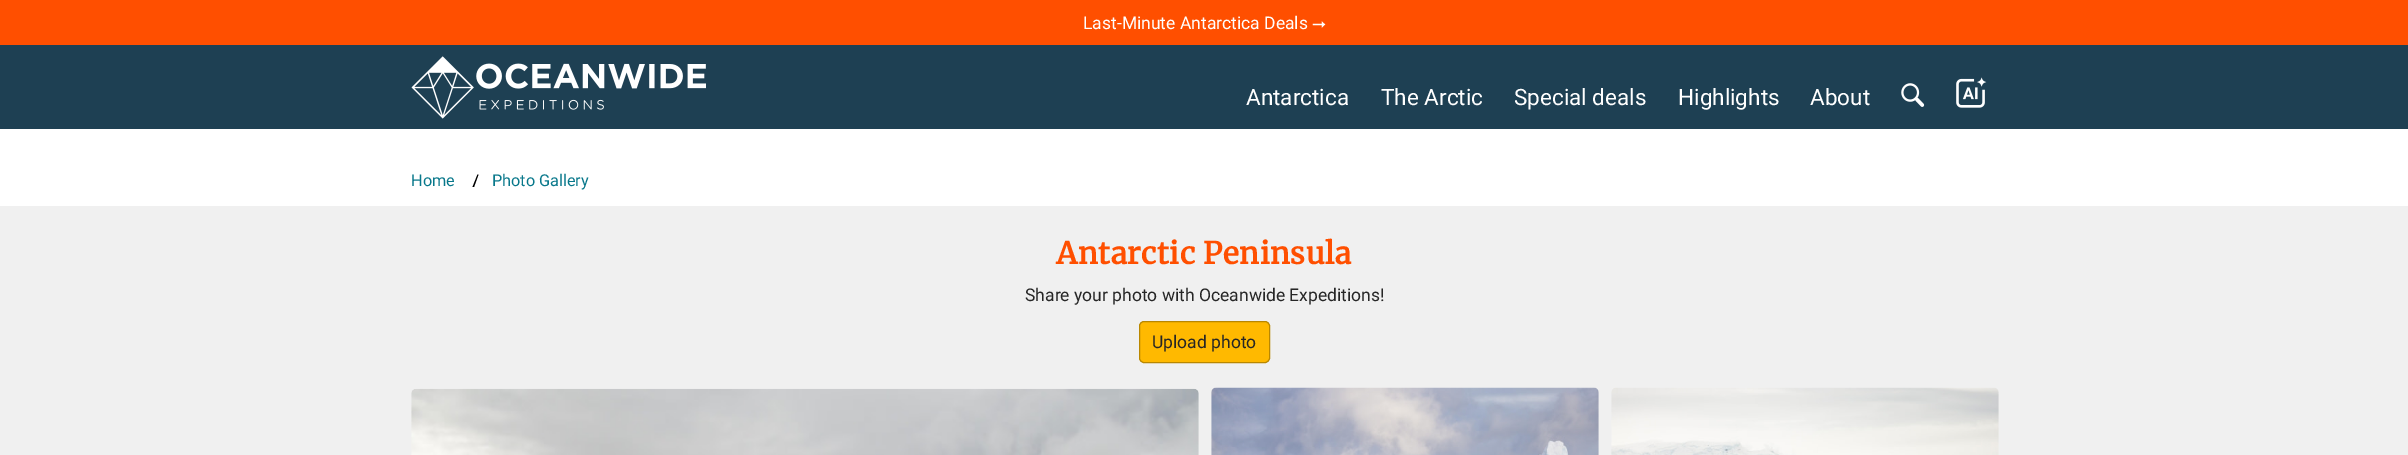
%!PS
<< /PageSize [2408 455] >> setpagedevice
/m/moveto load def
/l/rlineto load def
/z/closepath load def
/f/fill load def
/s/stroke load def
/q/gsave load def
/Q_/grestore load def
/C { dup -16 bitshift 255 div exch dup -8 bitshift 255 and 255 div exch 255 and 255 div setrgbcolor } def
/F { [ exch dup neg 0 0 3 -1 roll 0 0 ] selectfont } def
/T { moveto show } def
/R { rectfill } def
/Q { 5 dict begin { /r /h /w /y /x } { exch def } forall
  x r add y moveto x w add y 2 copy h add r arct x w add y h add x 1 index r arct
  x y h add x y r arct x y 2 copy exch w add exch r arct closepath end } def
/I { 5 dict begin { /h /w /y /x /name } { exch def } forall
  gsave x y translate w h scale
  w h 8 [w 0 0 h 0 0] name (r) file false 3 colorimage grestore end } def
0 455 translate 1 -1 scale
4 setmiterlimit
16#FFFFFF C
0 0 2408 455 R
16#FF4F00 C
0 0 2408 45 R
/Roboto-Regular 17.5 F
16#FFFFFF C
(Last-Minute Antarctica Deals) 1083 29 T
/FreeSans-Regular 17.5 F
(⭢) 1312 29 T
16#1E4053 C
0 45 2408 84 R
(1.rgb) 411 56 295 63 I
/Roboto-Regular 22.5 F
16#FFFFFF C
(Antarctica) 1246 105 T
(The Arctic) 1381 105 T
(Special deals) 1514 105 T
(Highlights) 1678 105 T
(About) 1810 105 T
(2.rgb) 1901 83 24 24 I
(3.rgb) 1956 77 31 31 I
/Roboto-Regular 16.25 F
16#08788B C
(Home) 411 186 T
16#000000 C
478.5 174.5 m -4.5 12.5 l -1.5 0 l 5 -12.5 l z f
16#08788B C
(Photo Gallery) 492 186 T
16#F0F0F0 C
0 206 2408 249 R
/Merriweather-Bold 30 F
16#FF4F00 C
1056 264 m .6 0 (Antarctic Peninsula) ashow
/Roboto-Regular 17.5 F
16#262626 C
(Share your photo with Oceanwide Expeditions!) 1025 301 T
16#FFB900 C
1139.5 321.5 130 41 4.5 Q q f Q_
16#B98700 C
s
16#262626 C
(Upload photo) 1152 348 T
(4.rgb) 411 388 788 67 I
(5.rgb) 1211 387 388 68 I
(6.rgb) 1611 387 388 68 I
showpage
